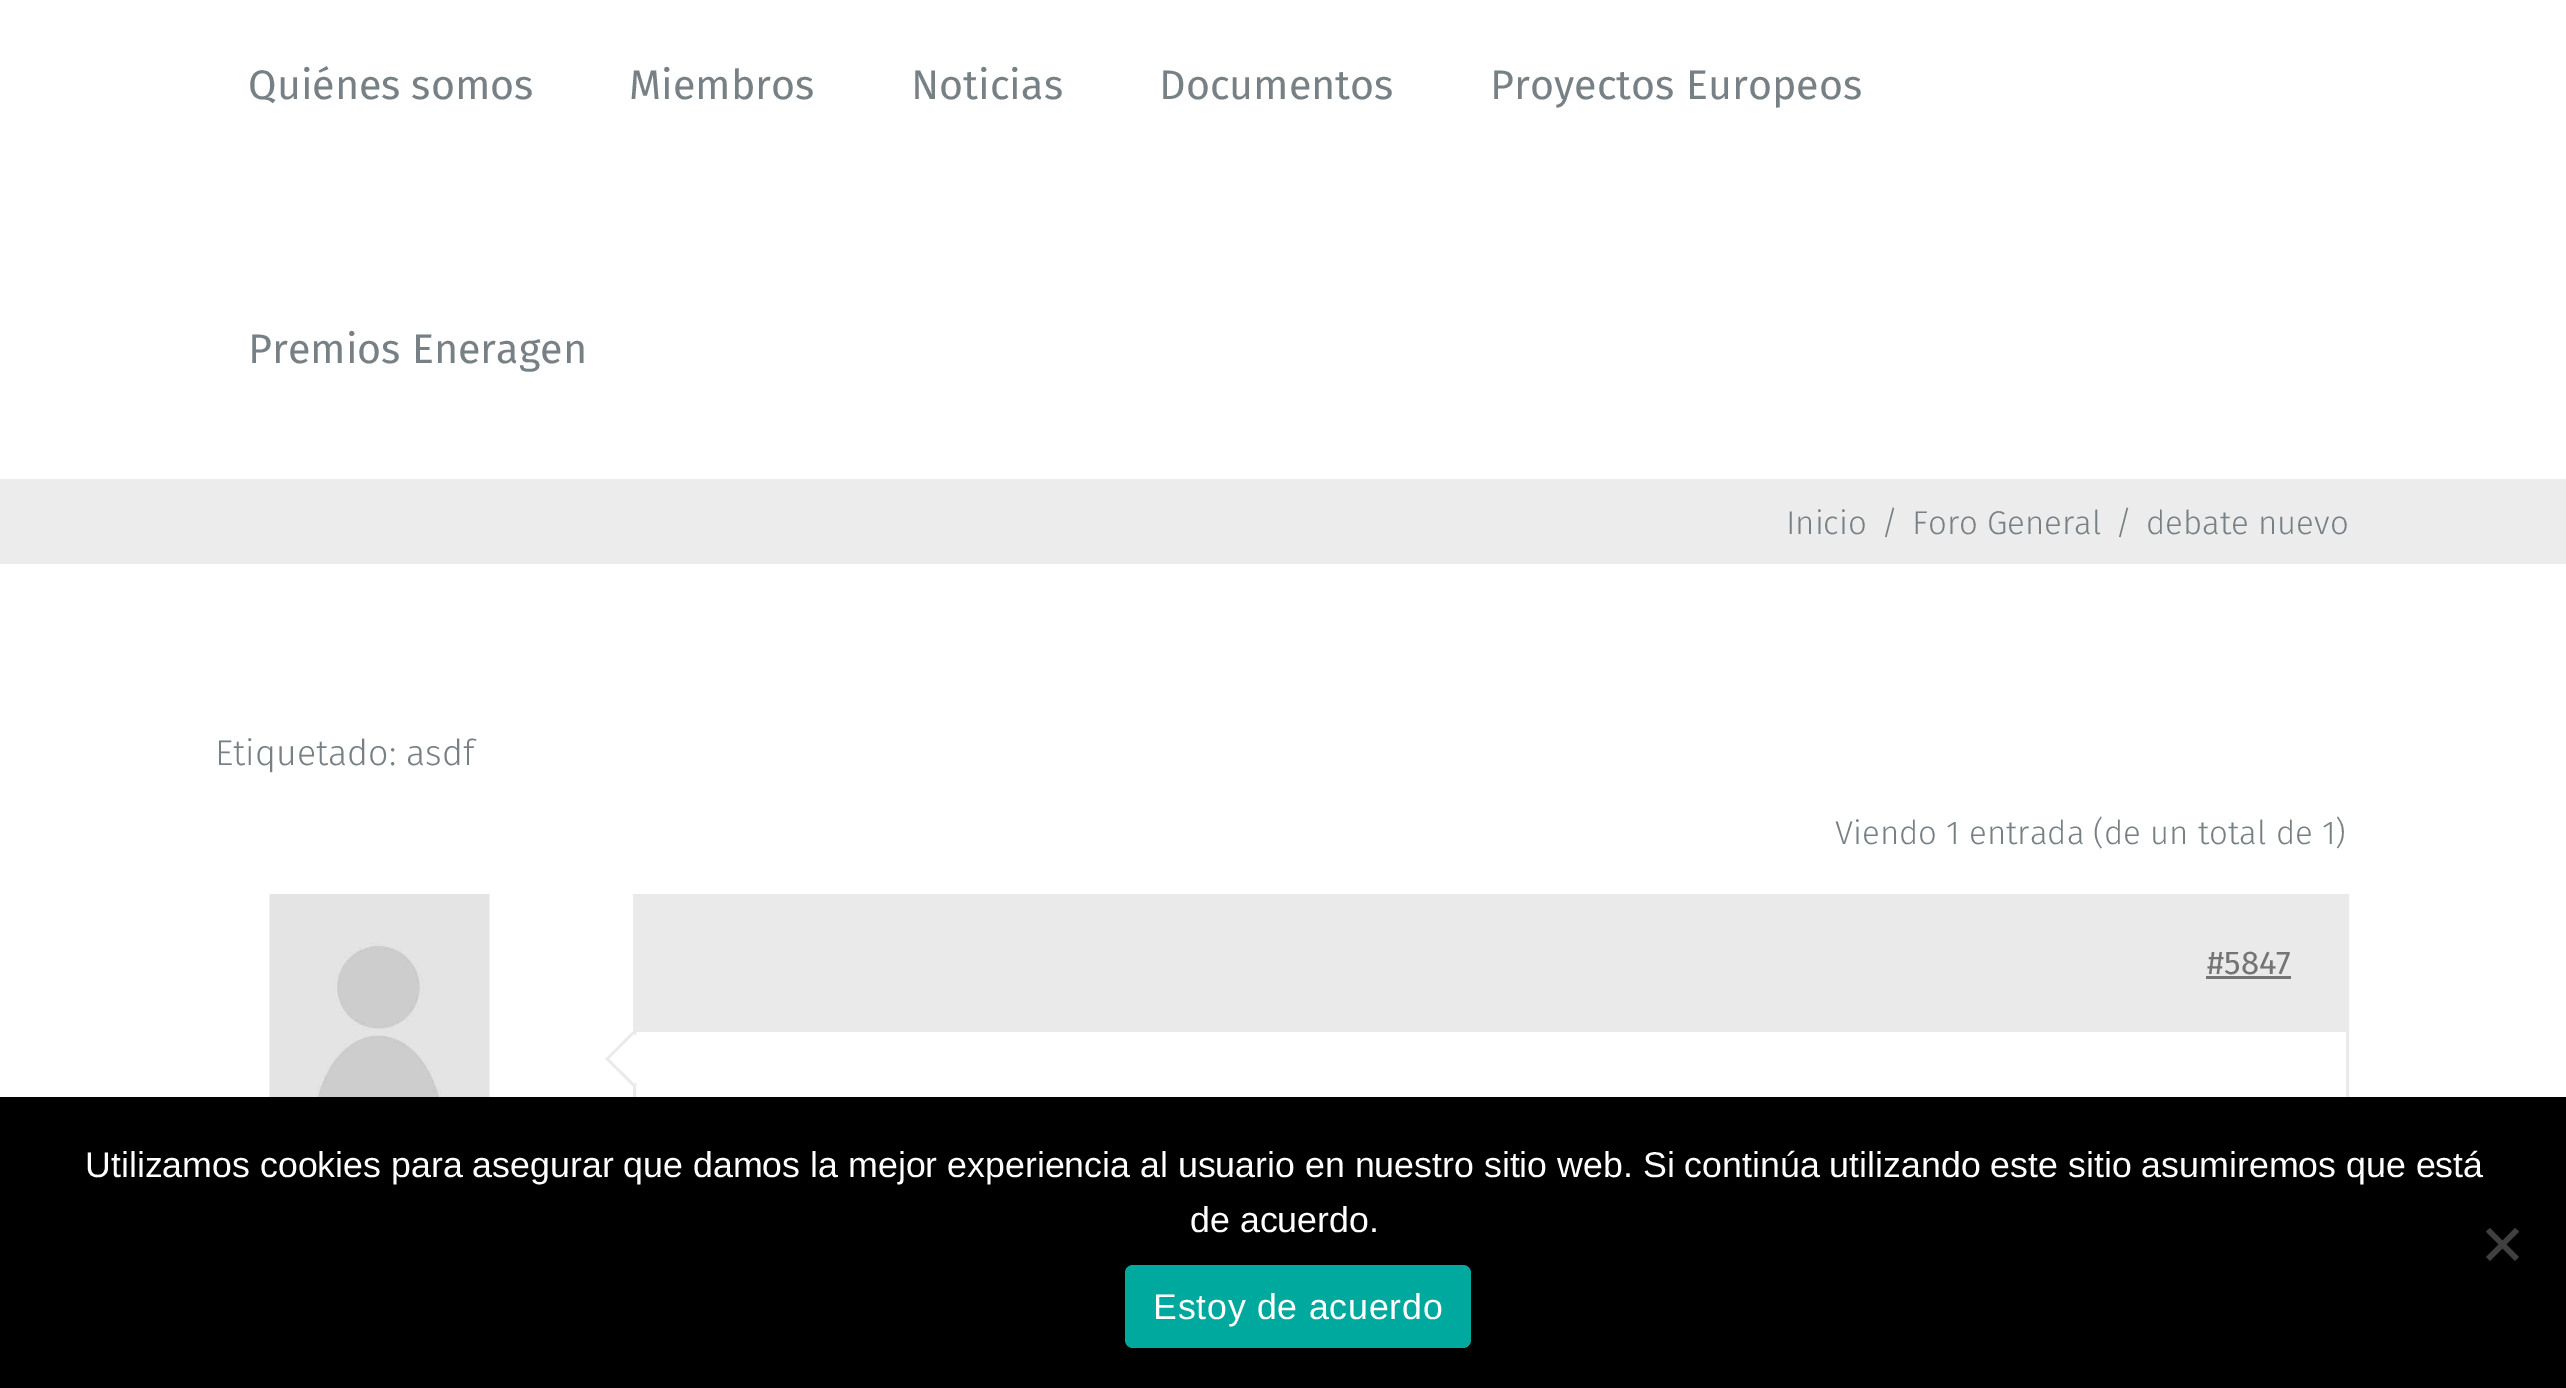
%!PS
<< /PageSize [2566 1388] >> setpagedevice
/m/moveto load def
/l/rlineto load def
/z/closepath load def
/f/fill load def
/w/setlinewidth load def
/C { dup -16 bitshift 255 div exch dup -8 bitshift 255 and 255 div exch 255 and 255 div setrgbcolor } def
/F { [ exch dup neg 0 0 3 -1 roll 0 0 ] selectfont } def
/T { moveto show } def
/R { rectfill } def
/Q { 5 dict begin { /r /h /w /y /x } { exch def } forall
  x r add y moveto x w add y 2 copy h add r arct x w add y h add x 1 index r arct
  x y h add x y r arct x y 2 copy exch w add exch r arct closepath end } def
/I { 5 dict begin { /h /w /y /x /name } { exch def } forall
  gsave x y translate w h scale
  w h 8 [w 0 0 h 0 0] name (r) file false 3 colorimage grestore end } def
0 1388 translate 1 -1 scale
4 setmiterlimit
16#FFFFFF C
0 0 2566 1388 R
/FiraSans-Regular 41.25 F
16#778085 C
(Quiénes somos) 248 99 T
(Miembros) 629 99 T
(Noticias) 911 99 T
(Documentos) 1159 99 T
(Proyectos Europeos) 1490 99 T
(Premios Eneragen) 248 363 T
16#ECECEC C
0 479 2566 85 R
/FiraSans-Light 33 F
16#778085 C
(Inicio) 1786 534 T
(/) 1881 534 T
(Foro General) 1912 534 T
(/) 2115 534 T
(debate nuevo) 2146 534 T
/FiraSans-Light 35.75 F
(Etiquetado: asdf) 215 765 T
/FiraSans-Light 33 F
(Viendo 1 entrada \(de un total de 1\)) 1835 844 T
(1.rgb) 269 894 221 203 I
16#EBEAEA C
3 w
634.5 895.5 1713 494 rectstroke
636 897 1710 132 R
635 1029 1711 3 R
/FiraSans-Regular 33 F
16#747474 C
(#5847) 2207 974 T
2206 976 85 3 R
16#FFFFFF C
632 1032 m 28 27 l -28 27 l -27 -27 l z f
16#EBEAEA C
607 1057 m 27.5 27 l -2 2 l -27 -27 l z f
632.5 1031.5 m 2 2 l -27.5 27 l -1.5 -1.5 l z f
16#000000 C
0 1097 2566 291 R
/LiberationSans-Regular 35.75 F
16#FFFFFF C
(Utilizamos cookies para asegurar que damos la mejor experiencia al usuario en nuestro sitio web. Si continúa utilizando este sitio asumiremos que está) 85 1177 T
(de acuerdo.) 1190 1232 T
16#404040 C
2515 1228 m 4 3.5 l -29 29.5 l -4 -4 l z f
2486 1231.5 m 4 -3.5 l 29 29 l -4 4 l z f
16#00A99D C
1125 1265 346 83 8 Q f
16#FFFFFF C
1153 1319 m .75 0 (Estoy de acuerdo) ashow
showpage
